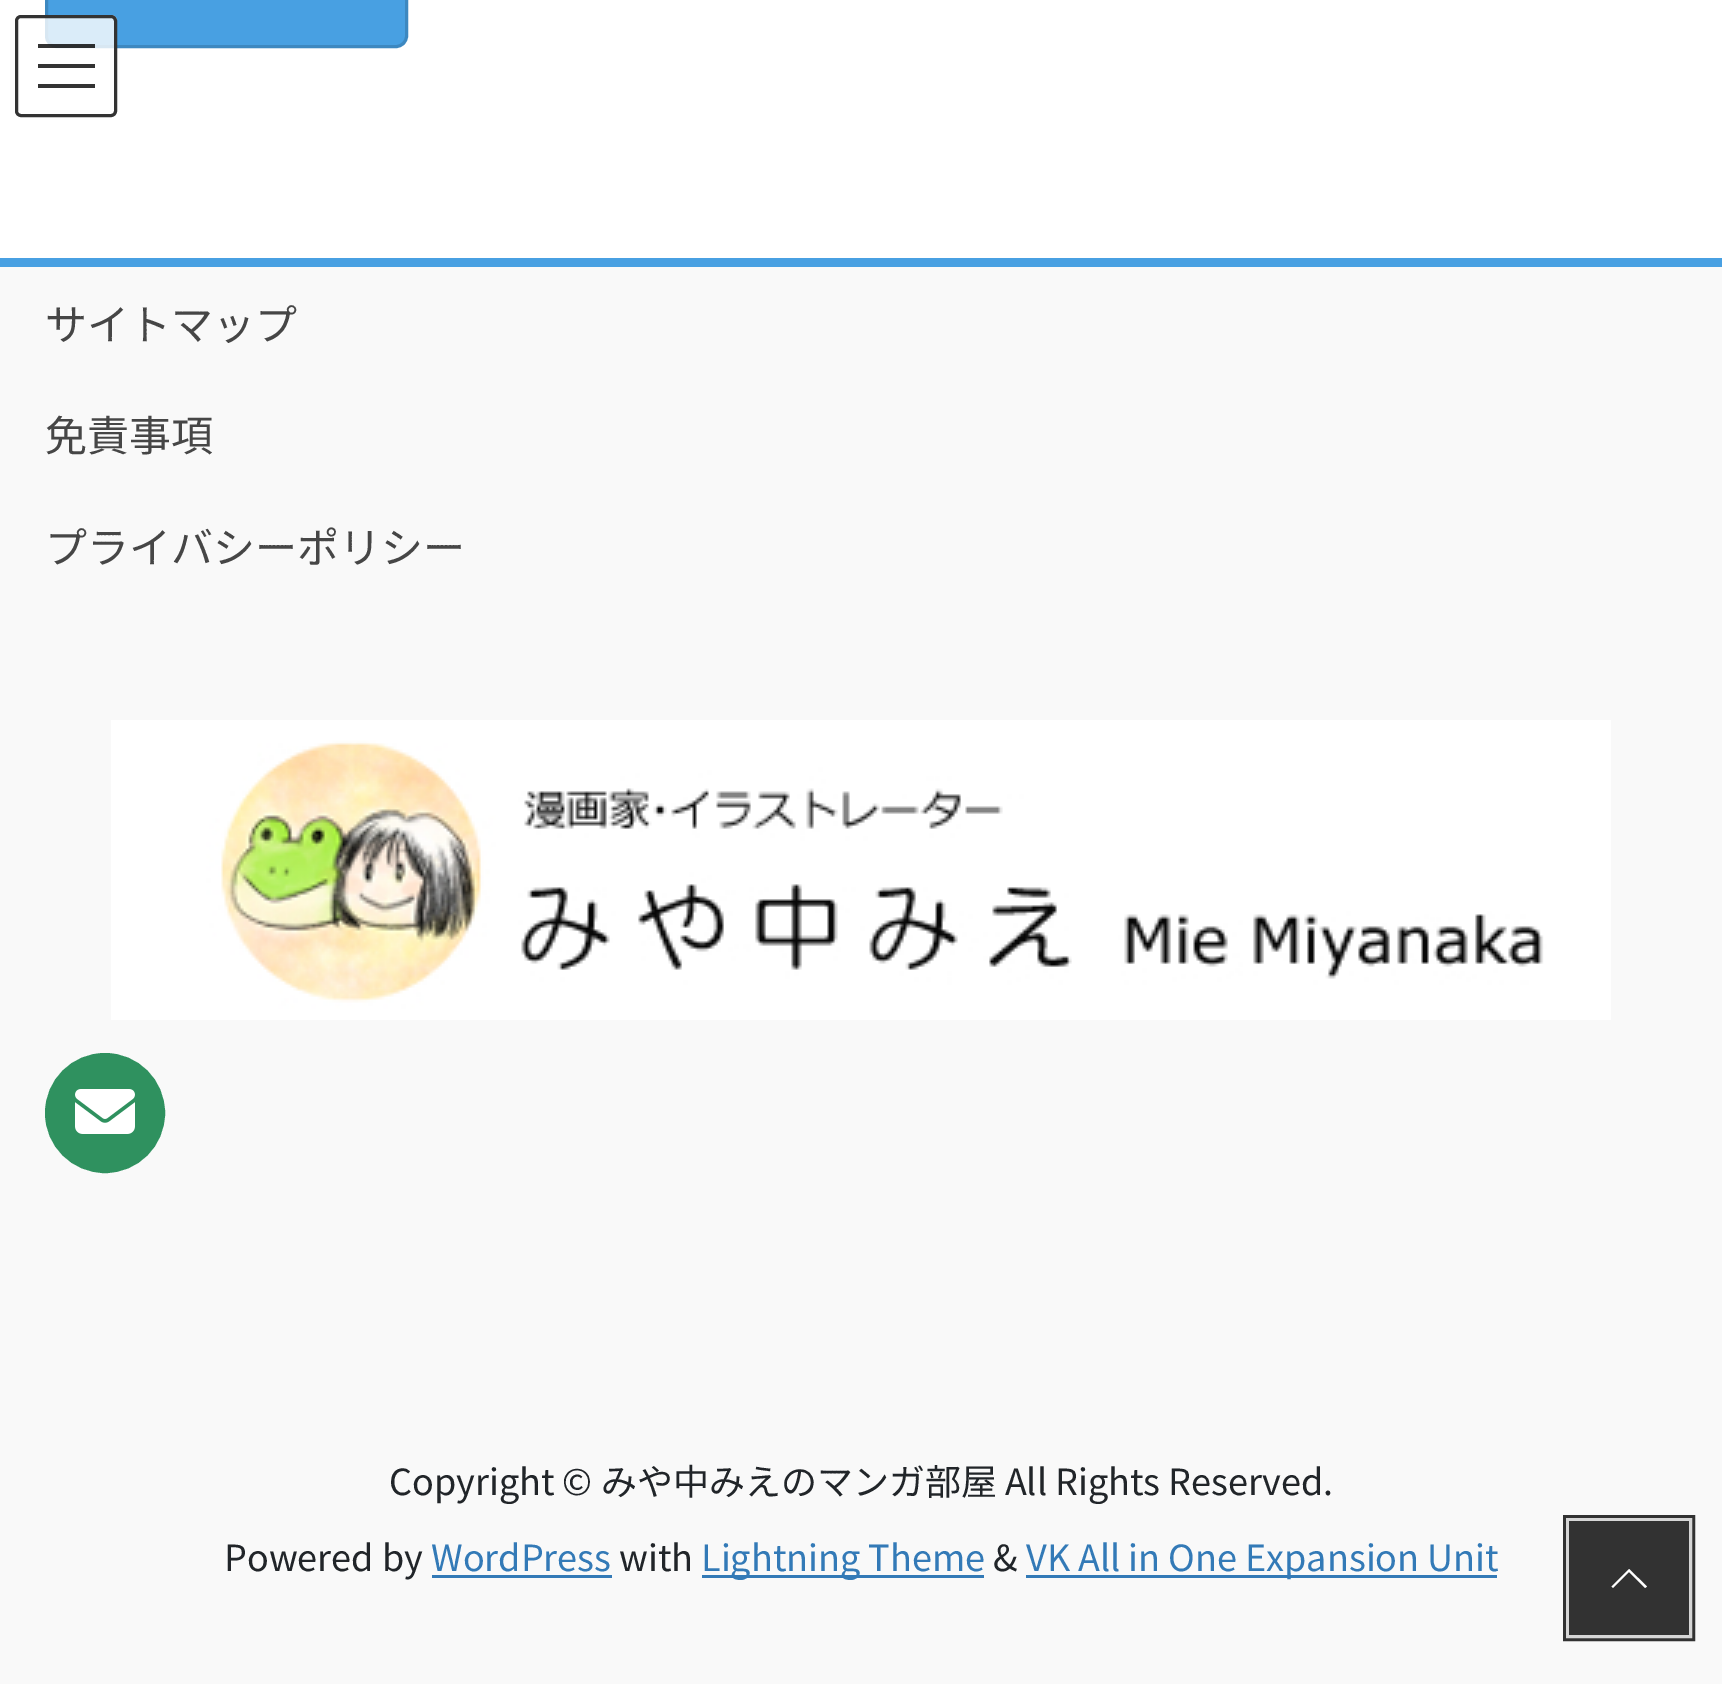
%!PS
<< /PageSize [1722 1684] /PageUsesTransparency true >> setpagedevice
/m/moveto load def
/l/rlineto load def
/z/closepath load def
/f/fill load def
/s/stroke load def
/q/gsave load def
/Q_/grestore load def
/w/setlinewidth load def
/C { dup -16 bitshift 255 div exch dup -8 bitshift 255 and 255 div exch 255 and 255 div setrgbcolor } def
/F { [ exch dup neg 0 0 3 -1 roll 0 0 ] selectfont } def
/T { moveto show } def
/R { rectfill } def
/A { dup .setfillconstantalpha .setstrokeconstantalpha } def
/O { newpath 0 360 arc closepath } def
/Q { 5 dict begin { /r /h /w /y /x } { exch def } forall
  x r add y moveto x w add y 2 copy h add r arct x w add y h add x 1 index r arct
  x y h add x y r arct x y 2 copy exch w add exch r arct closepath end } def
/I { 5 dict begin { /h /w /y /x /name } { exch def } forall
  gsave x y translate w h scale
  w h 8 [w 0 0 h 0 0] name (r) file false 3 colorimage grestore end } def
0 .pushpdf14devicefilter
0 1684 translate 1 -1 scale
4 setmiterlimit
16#FFFFFF C
0 0 1722 1684 R
16#48A0E2 C
46.5 -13.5 360 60 10.5 Q q f Q_
16#3D88C0 C
3 w
s
0.8 A
16#FFFFFF C
15 15 102 102 6 Q f
16#000000 C
38 44 57 4 R
1 A
16#333333 C
38 64 57 4 R
38 84 57 4 R
16.5 16.5 99 99 4.5 Q s
16#F9F9F9 C
0 267 1722 1417 R
16#48A0E2 C
0 258 1722 9 R
/NotoSansJP-Regular 42 F
16#464646 C
(サイトマップ) 45 340 T
(免責事項) 45 451 T
(プライバシーポリシー) 45 563 T
(1.rgb) 111 720 1500 300 I
16#2F915F C
105 1113 58.5 O q f Q_
s
(2.rgb) 75 1089 60 45 I
/NotoSansJP-Regular 36 F
16#212529 C
(Copyright © みや中みえのマンガ部屋 All Rights Reserved.) 389 1495 T
(Powered by) 224 1571 T
16#337AB7 C
(WordPress) 431 1571 T
432 1575 180 3 R
16#212529 C
(with) 619 1571 T
16#337AB7 C
702 1575 282 3 R
(Lightning Theme) 701 1571 T
16#212529 C
(&) 993 1571 T
16#337AB7 C
1026 1575 471 3 R
(VK All in One Expansion Unit) 1026 1571 T
16#323232 C
6 w
1566 1518 126 120 rectstroke
16#D6D6D6 C
3 w
1567.5 1519.5 123 117 rectstroke
16#323232 C
1569 1521 120 114 R
16#FFFFFF C
1647 1586.5 m -2 1.5 l -16 -16 l -16 16 l -1.5 -1.5 l 17.5 -17.5 l z f
.poppdf14devicefilter showpage
